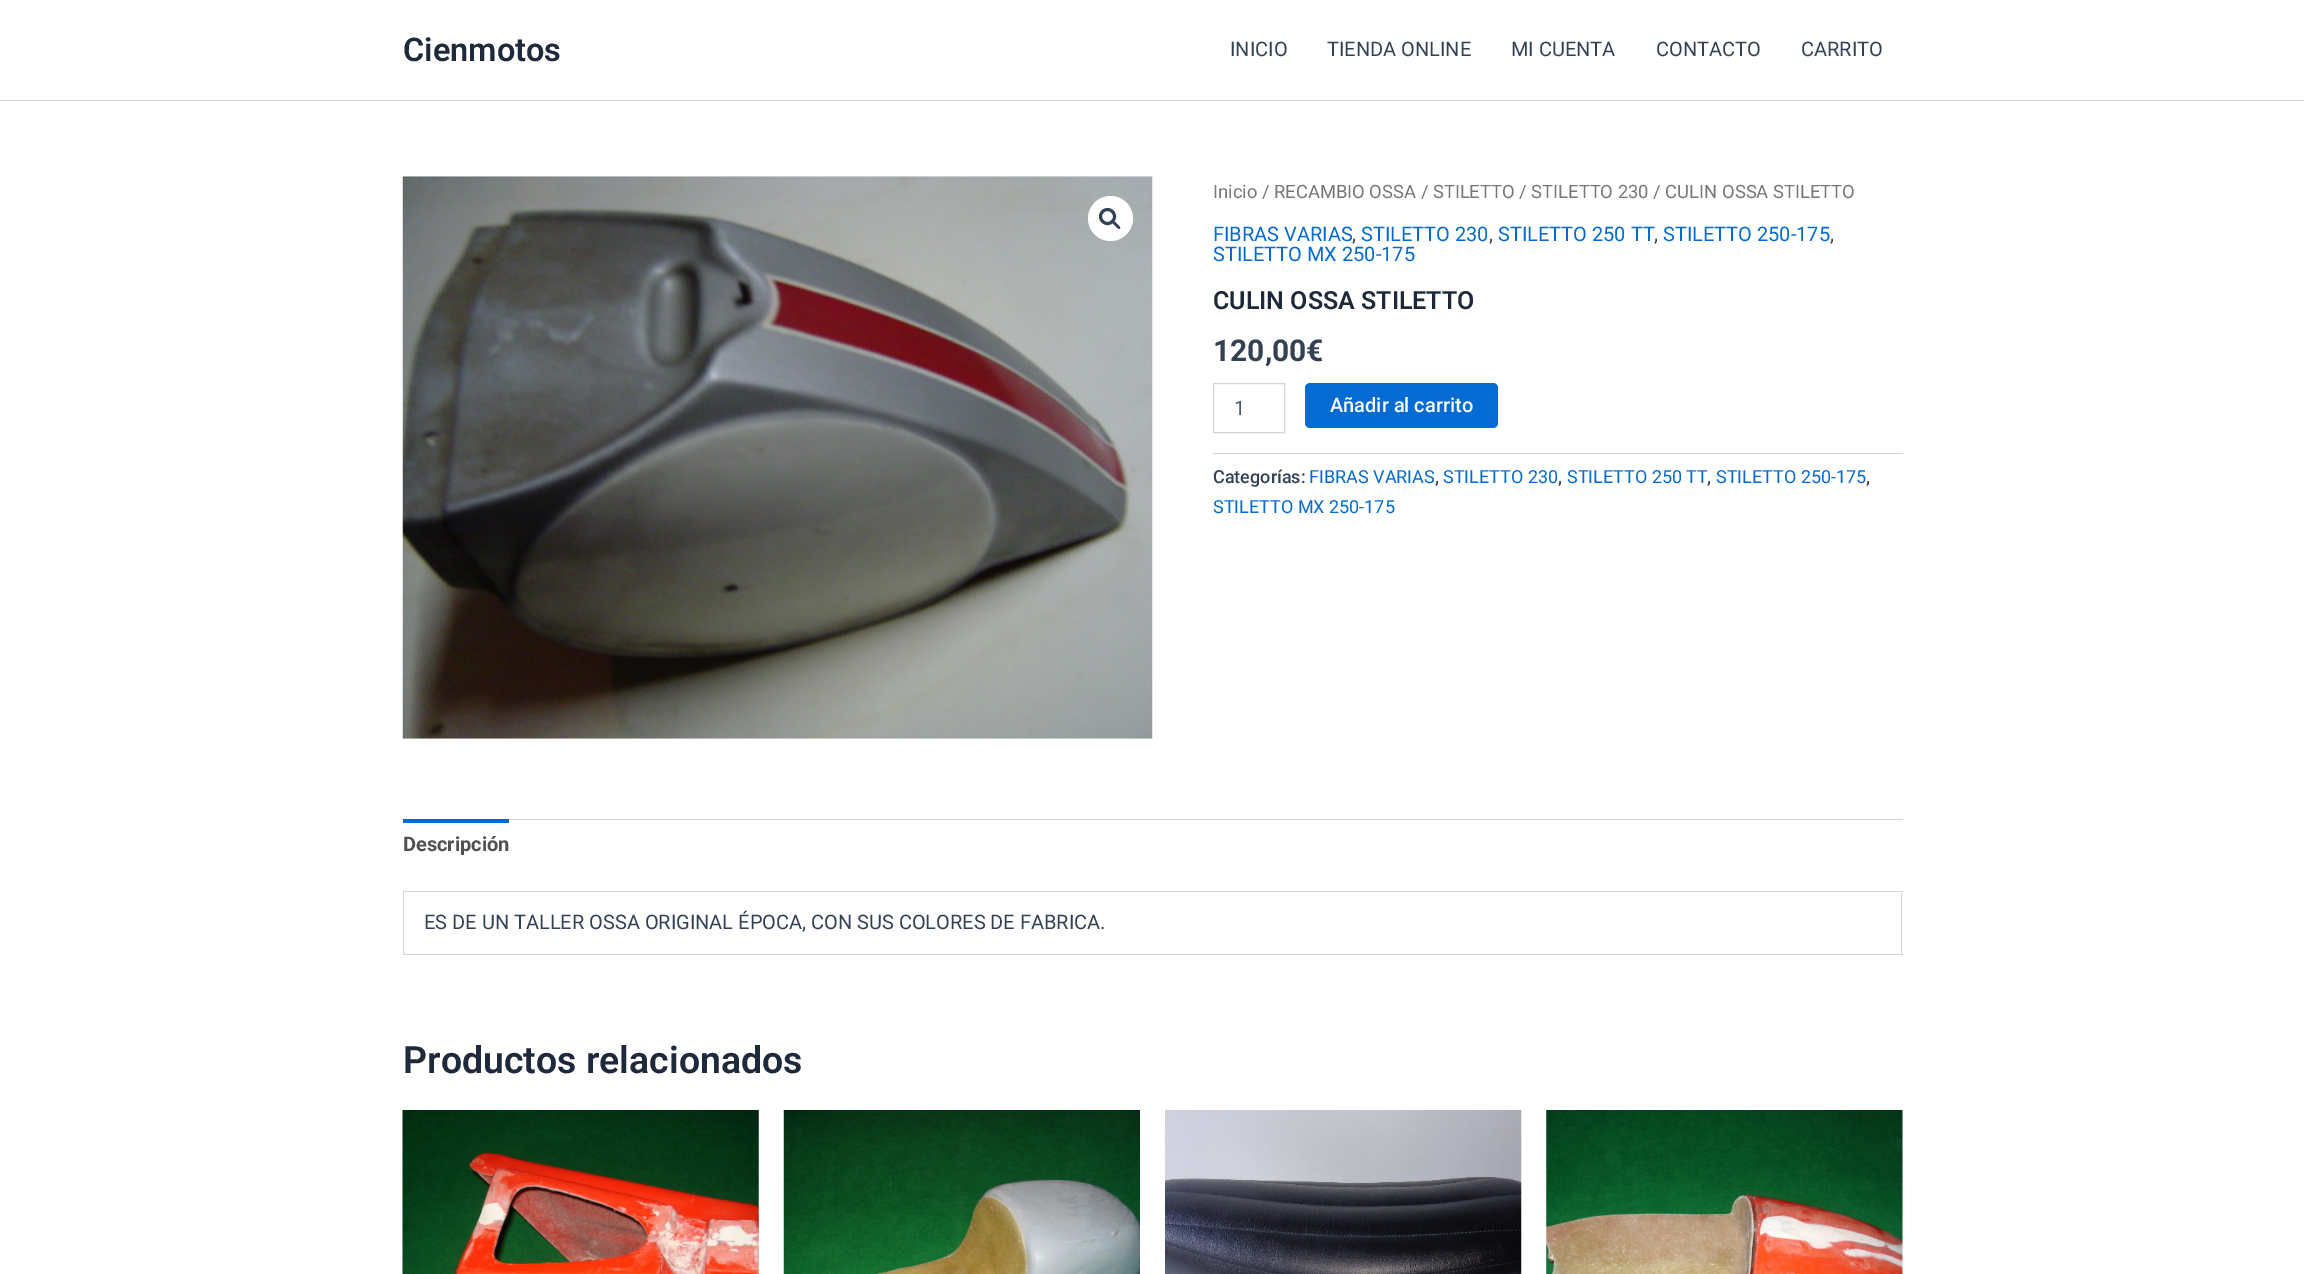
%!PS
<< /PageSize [2304 1274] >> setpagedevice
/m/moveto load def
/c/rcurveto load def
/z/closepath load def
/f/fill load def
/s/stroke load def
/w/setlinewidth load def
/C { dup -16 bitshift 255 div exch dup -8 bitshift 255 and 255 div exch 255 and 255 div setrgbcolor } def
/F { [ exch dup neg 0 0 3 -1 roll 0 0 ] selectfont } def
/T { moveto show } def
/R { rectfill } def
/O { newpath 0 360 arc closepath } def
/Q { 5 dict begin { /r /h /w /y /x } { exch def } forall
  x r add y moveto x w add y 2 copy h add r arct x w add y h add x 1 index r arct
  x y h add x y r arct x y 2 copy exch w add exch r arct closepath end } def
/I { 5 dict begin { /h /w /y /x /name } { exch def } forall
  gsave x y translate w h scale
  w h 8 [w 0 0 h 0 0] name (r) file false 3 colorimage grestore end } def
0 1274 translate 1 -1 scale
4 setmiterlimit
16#FFFFFF C
0 0 2304 1274 R
16#D1D5DB C
0 100 2304 1 R
/Roboto-SemiBold 32.5 F
16#1E293B C
(Cienmotos) 403 61 T
/Roboto-Regular 20 F
16#334155 C
(INICIO) 1230 56 T
(TIENDA ONLINE) 1327 56 T
(MI CUENTA) 1511 56 T
(CONTACTO) 1656 56 T
(CARRITO) 1801 56 T
(1.rgb) 402 176 751 563 I
16#FFFFFF C
1110.5 218.5 22.5 O f
16#334155 C
3 w
1107.5 216.5 7 O s
1112.5 221.5 m 1.5 -1.5 4 2 4.5 2.5 c 1 1 4 3 3 4.5 c -1.5 1.5 -4 -2 -4.5 -2.5 c -1 -1 -4 -3 -3 -4.5 c z f
/Roboto-Regular 18.4 F
16#777777 C
(Inicio / RECAMBIO OSSA / STILETTO / STILETTO 230 / CULIN OSSA STILETTO) 1213 198 T
/Roboto-Regular 20 F
16#046BD2 C
(FIBRAS VARIAS) 1213 241 T
16#334155 C
(,) 1352 241 T
16#046BD2 C
(STILETTO 230) 1361 241 T
16#334155 C
(,) 1489 241 T
16#046BD2 C
(STILETTO 250 TT) 1498 241 T
16#334155 C
(,) 1654 241 T
16#046BD2 C
(STILETTO 250-175) 1663 241 T
16#334155 C
(,) 1830 241 T
16#046BD2 C
(STILETTO MX 250-175) 1213 261 T
/Roboto-SemiBold 25 F
16#1E293B C
(CULIN OSSA STILETTO) 1213 309 T
/Roboto-Bold 30 F
16#334155 C
(120,00€) 1213 361 T
16#D1D5DB C
1 w
1213.5 383.5 71 49 rectstroke
/Roboto-Regular 20 F
16#475569 C
(1) 1234 415 T
16#046BD2 C
1305 383 193 45 5 Q f
/Roboto-Medium 20 F
16#FFFFFF C
(Añadir al carrito) 1330 412 T
16#D1D5DB C
1213 453 690 1 R
/Roboto-Medium 18 F
16#334155 C
(Categorías:) 1213 483 T
/Roboto-Regular 18 F
16#046BD2 C
(FIBRAS VARIAS) 1309 483 T
/Roboto-Medium 18 F
16#334155 C
(,) 1435 483 T
/Roboto-Regular 18 F
16#046BD2 C
(STILETTO 230) 1443 483 T
/Roboto-Medium 18 F
16#334155 C
(,) 1558 483 T
/Roboto-Regular 18 F
16#046BD2 C
(STILETTO 250 TT) 1567 483 T
/Roboto-Medium 18 F
16#334155 C
(,) 1707 483 T
/Roboto-Regular 18 F
16#046BD2 C
(STILETTO 250-175) 1716 483 T
/Roboto-Medium 18 F
16#334155 C
(,) 1866 483 T
/Roboto-Regular 18 F
16#046BD2 C
(STILETTO MX 250-175) 1213 513 T
16#D1D5DB C
509 819 1394 1 R
16#046BD2 C
403 819 106 4 R
/Roboto-Bold 20 F
16#515151 C
(Descripción) 403 851 T
16#D1D5DB C
403 891 1500 1 R
403 891 1 64 R
1901 893 1 62 R
404 954 1499 1 R
/Roboto-Regular 20 F
16#334155 C
(ES DE UN TALLER OSSA ORIGINAL ÉPOCA, CON SUS COLORES DE FABRICA.) 424 929 T
/Roboto-SemiBold 37.5 F
16#1E293B C
(Productos relacionados) 403 1073 T
(2.rgb) 402 1110 357 164 I
(3.rgb) 783 1110 357 164 I
(4.rgb) 1165 1110 357 164 I
(5.rgb) 1546 1110 357 164 I
showpage
